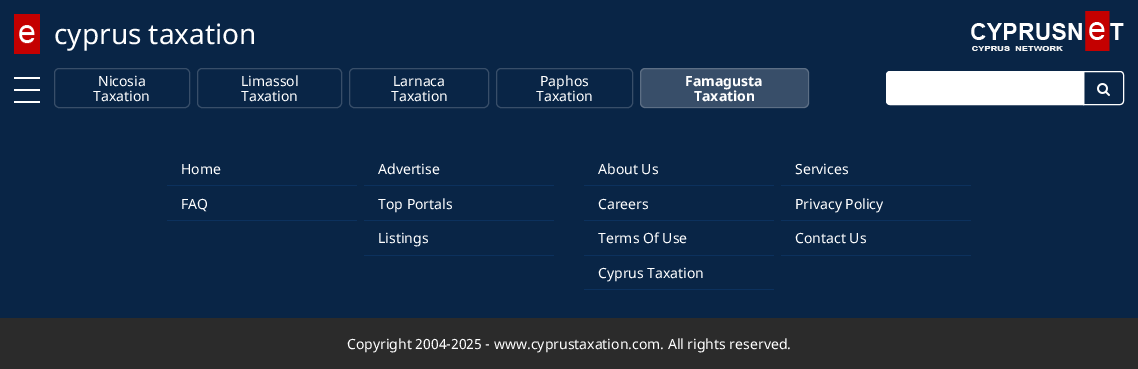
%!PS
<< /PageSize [1138 369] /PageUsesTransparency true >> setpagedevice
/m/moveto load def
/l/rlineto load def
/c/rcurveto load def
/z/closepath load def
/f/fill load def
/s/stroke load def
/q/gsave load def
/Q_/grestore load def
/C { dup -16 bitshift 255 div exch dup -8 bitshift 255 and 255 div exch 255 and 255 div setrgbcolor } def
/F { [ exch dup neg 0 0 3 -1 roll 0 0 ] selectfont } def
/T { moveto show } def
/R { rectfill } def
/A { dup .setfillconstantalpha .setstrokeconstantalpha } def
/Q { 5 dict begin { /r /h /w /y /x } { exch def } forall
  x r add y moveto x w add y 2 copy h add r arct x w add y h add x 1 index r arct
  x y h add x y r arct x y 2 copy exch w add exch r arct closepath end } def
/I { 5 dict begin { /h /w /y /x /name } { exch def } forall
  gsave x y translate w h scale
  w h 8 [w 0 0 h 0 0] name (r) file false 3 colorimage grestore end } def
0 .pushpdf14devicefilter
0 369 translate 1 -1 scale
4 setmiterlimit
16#092546 C
0 0 1138 369 R
(1.rgb) 971 11 153 40 I
(2.rgb) 14 14 26 40 I
/NotoSans-Regular 28 F
16#FFFFFF C
(cyprus taxation) 54 44 T
14 89 26 2 R
14 77 26 2 R
14 101 26 2 R
16#384E69 C
54.5 68.5 135 39 4.5 Q s
/NotoSans-Regular 14 F
16#FFFFFF C
(Nicosia) 98 86 T
(Taxation) 93 101 T
16#384E69 C
197.5 68.5 144 39 4.5 Q s
16#FFFFFF C
(Limassol) 241 86 T
(Taxation) 241 101 T
16#384E69 C
349.5 68.5 139 39 4.5 Q s
16#FFFFFF C
(Larnaca) 393 86 T
(Taxation) 391 101 T
16#384E69 C
496.5 68.5 136 39 4.5 Q s
16#FFFFFF C
(Paphos) 540 86 T
(Taxation) 536 101 T
16#384E69 C
640 68 169 40 5 Q f
0.19 A
16#FFFFFF C
640.5 68.5 168 39 4.5 Q s
/NotoSans-Bold 14 F
1 A
(Famagusta) 685 86 T
(Taxation) 694 101 T
890 71.5 m 193.5 0 l 0 33 l -193.5 0 l -2 0 -3.5 -1.5 -3.5 -3.5 c 0 -26 l 0 -2 1.5 -3.5 3.5 -3.5 c z q f Q_
s
1083.5 71.5 m 36.5 0 l 2 0 3.5 1.5 3.5 3.5 c 0 26 l 0 2 -1.5 3.5 -3.5 3.5 c -36.5 0 l z s
(3.rgb) 1097 83 13 13 I
16#0C315D C
167 185 190 1 R
/NotoSans-Regular 14 F
16#FFFFFF C
(Home) 181 174 T
16#0C315D C
364 185 190 1 R
16#FFFFFF C
(Advertise) 378 174 T
16#0C315D C
167 220 190 1 R
16#FFFFFF C
(FAQ) 181 209 T
16#0C315D C
364 220 190 1 R
16#FFFFFF C
(Top Portals) 378 209 T
16#0C315D C
364 255 190 1 R
16#FFFFFF C
(Listings) 378 243 T
16#0C315D C
584 185 190 1 R
16#FFFFFF C
(About Us) 598 174 T
16#0C315D C
781 185 190 1 R
16#FFFFFF C
(Services) 795 174 T
16#0C315D C
584 220 190 1 R
16#FFFFFF C
(Careers) 598 209 T
16#0C315D C
781 220 190 1 R
16#FFFFFF C
(Privacy Policy) 795 209 T
16#0C315D C
584 255 190 1 R
16#FFFFFF C
(Terms Of Use) 598 243 T
16#0C315D C
781 255 190 1 R
16#FFFFFF C
(Contact Us) 795 243 T
16#0C315D C
584 289 190 1 R
16#FFFFFF C
(Cyprus Taxation) 598 278 T
16#2B2B2B C
0 318 1138 51 R
16#FFFFFF C
(Copyright 2004-2025 - www.cyprustaxation.com. All rights reserved.) 347 349 T
.poppdf14devicefilter showpage
